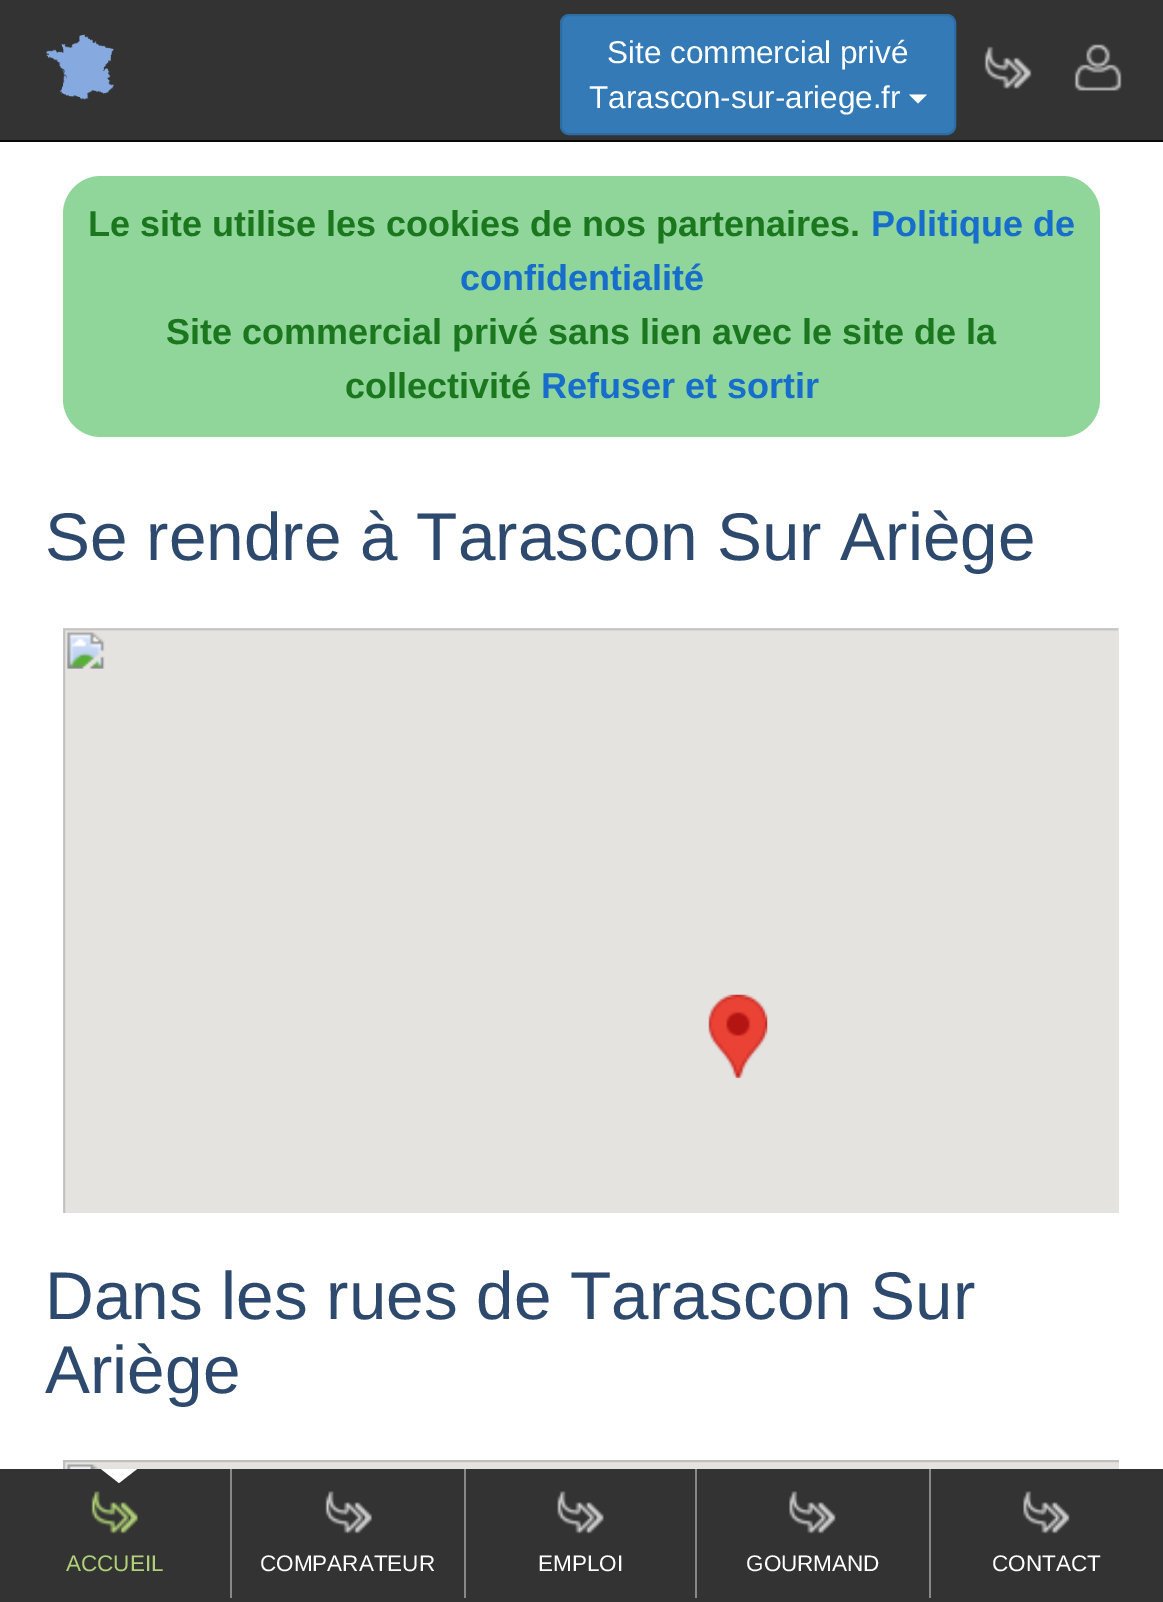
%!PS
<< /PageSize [1163 1602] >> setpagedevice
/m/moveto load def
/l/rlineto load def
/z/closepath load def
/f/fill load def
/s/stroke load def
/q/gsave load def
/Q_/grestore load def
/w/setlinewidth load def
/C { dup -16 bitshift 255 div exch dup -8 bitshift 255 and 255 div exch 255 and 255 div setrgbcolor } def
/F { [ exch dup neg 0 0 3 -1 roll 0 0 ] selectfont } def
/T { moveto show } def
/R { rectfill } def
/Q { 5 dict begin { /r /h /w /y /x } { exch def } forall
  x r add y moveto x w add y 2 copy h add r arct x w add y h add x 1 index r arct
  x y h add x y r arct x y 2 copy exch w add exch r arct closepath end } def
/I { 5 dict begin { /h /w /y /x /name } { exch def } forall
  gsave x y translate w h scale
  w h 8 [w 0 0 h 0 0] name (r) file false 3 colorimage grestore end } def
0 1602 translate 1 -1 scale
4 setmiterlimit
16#FFFFFF C
0 0 1163 1602 R
16#333333 C
0 0 1163 140 R
16#080808 C
0 140 1163 2 R
(1.rgb) 46 34 68 66 I
16#337AB7 C
561 15 394 119 8 Q q f Q_
16#2E6DA4 C
2 w
s
/LiberationSans-Regular 31.5 F
16#FFFFFF C
(Site commercial privé) 607 63 T
(Tarascon-sur-ariege.fr) 589 108 T
909 94.5 m 18 0 l -9 9 l z f
(2.rgb) 984 46 48 43 I
(3.rgb) 1074 44 48 47 I
16#90D69A C
63 176 1037 261 38 Q f
/LiberationSans-Bold 36 F
16#1A771E C
(Le site utilise les cookies de nos partenaires.) 88 236 T
16#166DCC C
(Politique de) 871 236 T
(confidentialité) 460 290 T
16#1A771E C
(Site commercial privé sans lien avec le site de la) 166 344 T
(collectivité) 345 398 T
16#166DCC C
(Refuser et sortir) 541 398 T
/LiberationSans-Regular 67.5 F
16#2E496E C
(Se rendre à Tarascon Sur Ariège) 45 560 T
(4.rgb) 63 628 1056 585 I
(Dans les rues de Tarascon Sur) 45 1319 T
(Ariège) 45 1393 T
(5.rgb) 63 1460 1056 9 I
16#333333 C
0 1469 1163 133 R
16#888888 C
230 1469 2 129 R
16#FFFFFF C
101 1469 m 36 0 l -18 14 l z f
(6.rgb) 91 1491 47 43 I
/LiberationSans-Regular 22.5 F
16#B0D177 C
(ACCUEIL) 66 1571 T
16#888888 C
464 1469 2 129 R
(7.rgb) 325 1491 47 43 I
16#FFFFFF C
(COMPARATEUR) 260 1571 T
16#888888 C
695 1469 2 129 R
(8.rgb) 557 1491 47 43 I
16#FFFFFF C
(EMPLOI) 538 1571 T
16#888888 C
929 1469 2 129 R
(9.rgb) 789 1491 47 43 I
16#FFFFFF C
(GOURMAND) 746 1571 T
(10.rgb) 1023 1491 47 43 I
(CONTACT) 992 1571 T
showpage
